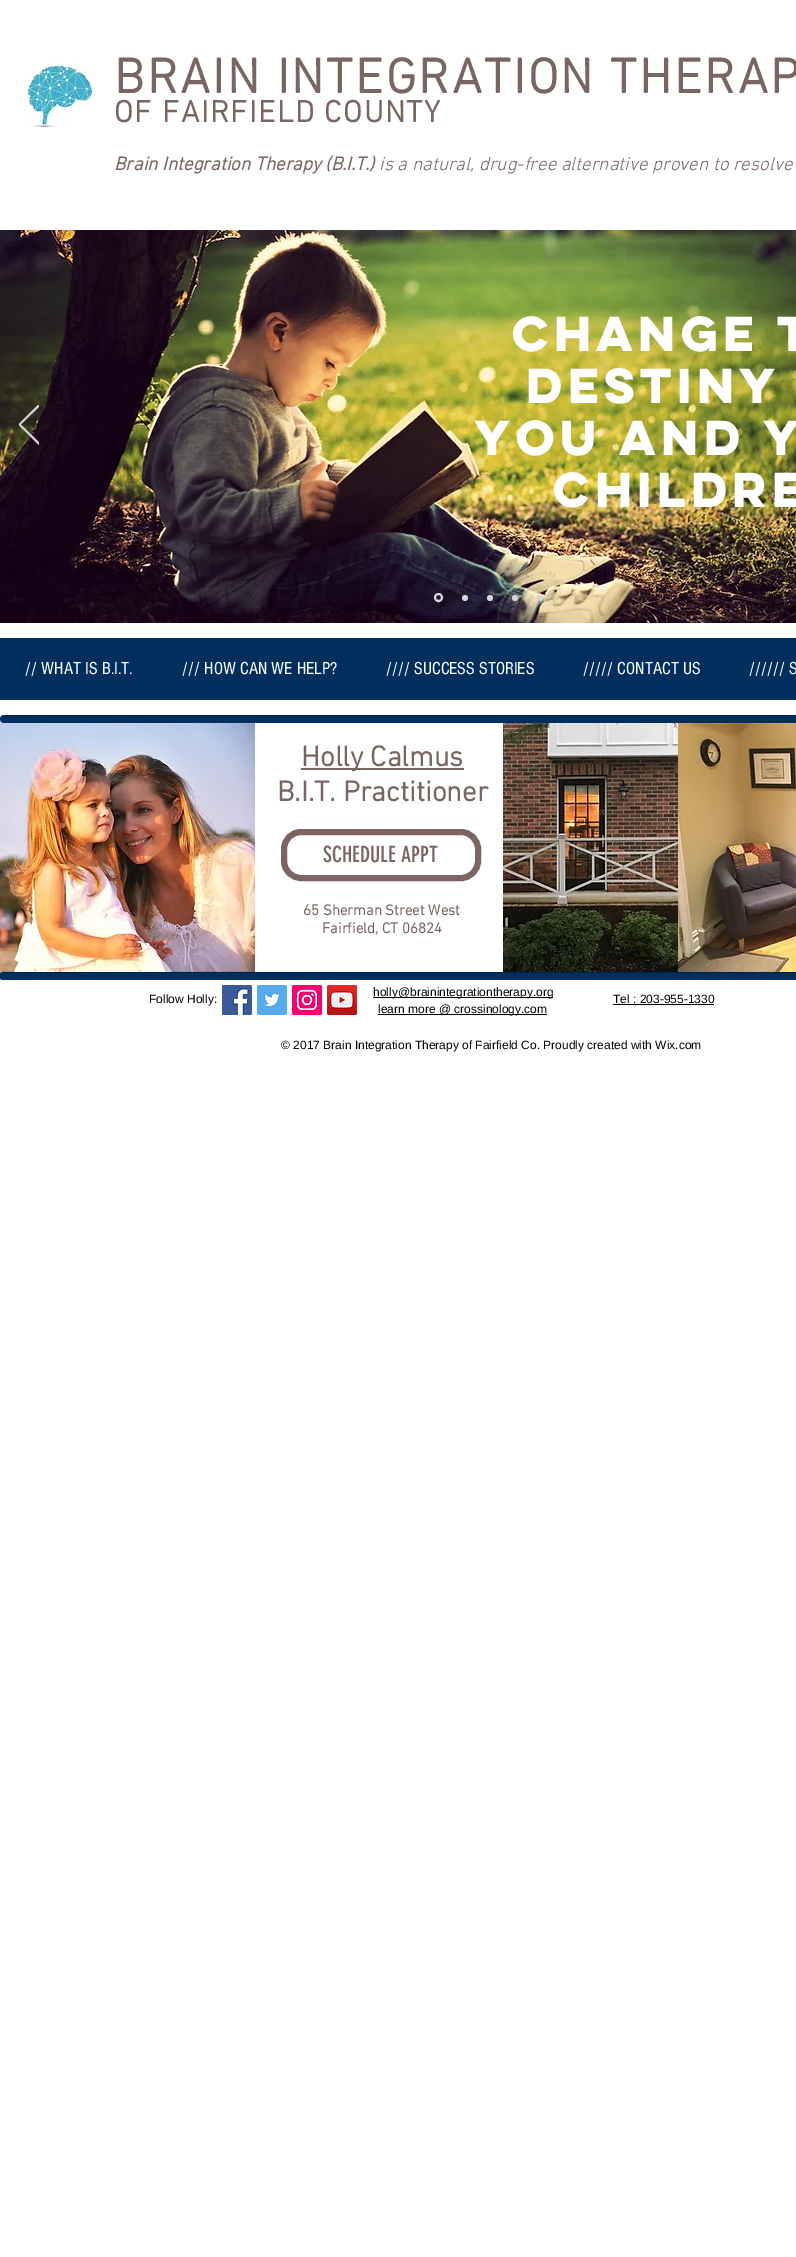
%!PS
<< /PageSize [796 2257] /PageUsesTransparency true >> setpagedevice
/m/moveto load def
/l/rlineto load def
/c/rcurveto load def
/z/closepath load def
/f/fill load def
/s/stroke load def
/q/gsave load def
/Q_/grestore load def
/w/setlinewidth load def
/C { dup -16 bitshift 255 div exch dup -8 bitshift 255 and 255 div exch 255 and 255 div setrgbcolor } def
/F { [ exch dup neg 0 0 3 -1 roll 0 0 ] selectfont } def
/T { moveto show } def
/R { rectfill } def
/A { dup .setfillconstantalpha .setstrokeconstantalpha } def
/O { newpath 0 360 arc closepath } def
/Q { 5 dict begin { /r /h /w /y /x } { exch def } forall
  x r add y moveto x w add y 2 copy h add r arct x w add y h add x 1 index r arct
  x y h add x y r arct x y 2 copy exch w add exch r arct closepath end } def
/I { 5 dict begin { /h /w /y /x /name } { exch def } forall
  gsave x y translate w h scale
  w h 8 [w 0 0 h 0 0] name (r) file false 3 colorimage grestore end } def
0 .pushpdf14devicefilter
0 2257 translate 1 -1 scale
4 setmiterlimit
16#FFFFFF C
0 0 796 2257 R
(1.rgb) 24 63 71 65 I
/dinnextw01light-Bold 50 F
16#7B6563 C
114 93 m 2.5 0 (BRAIN INTEGRATION THERAP) ashow
/dinnextw01light-Bold 31 F
114 122 m 1.5 0 (OF FAIRFIELD COUNTY) ashow
/dinnextw01light-BoldItalic 19 F
(Brain Integration Therapy \(B.I.T.\)) 114 170 T
/dinnextw01light-LightItalic 19 F
(is a natural, drug-free alternative proven to resolve) 379 170 T
(2.rgb) 0 230 796 393 I
q
19 405 20 40 rectclip
16#D6D6D6 C
38.5 444 m -19.5 -19.5 l 19.5 -19.5 l .5 1 l -19 18.5 l 19 18.5 l z s
Q_
/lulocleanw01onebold-Bold 44 F
16#FFFFFF C
512 351 m -4.5 0 (CHANGE T) ashow
526 403 m -4.5 0 (DESTINY) ashow
474 455 m -4.5 0 (YOU AND Y) ashow
553 507 m -4.5 0 (CHILDRE) ashow
16#D6D6D6 C
2 w
438.5 597.5 3.5 O s
465 598 3 O f
490 598 3 O f
515 598 3 O f
540 598 3 O f
16#002E5D C
0 638 796 61 R
16#003F44 C
0 699 796 1 R
/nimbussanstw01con-Regular 18 F
16#FFFFFF C
(// WHAT IS B.I.T.) 25 674 T
(/// HOW CAN WE HELP?) 182 674 T
(//// SUCCESS STORIES) 386 674 T
(///// CONTACT US) 583 674 T
(////// S) 749 674 T
(3.rgb) 0 719 255 254 I
(4.rgb) 503 723 175 249 I
(5.rgb) 678 723 118 249 I
0.1 A
0 720 m 0 2 2 4 4 4 c 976 0 l 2 0 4 -2 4 -4 c 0 1 -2 3 -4 3 c -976 0 l -2 0 -4 -2 -4 -3 c z f
1 A
16#002E5D C
4 715 m 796 0 l 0 8 l -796 0 l -2 0 -4 -2 -4 -4 c 0 -2 2 -4 4 -4 c z f
0.25 A
16#000000 C
4 716 m 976 0 l 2 0 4 2 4 4 c 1 -2 -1 -5 -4 -5 c -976 0 l -3 0 -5 3 -4 5 c 0 -2 1 -4 4 -4 c z f
1 A
16#002E5D C
-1 972 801 8 4 Q f
0.25 A
16#000000 C
3 973 m 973 0 l 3 1 l 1 3 l 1 -2 -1 -4 -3 -5 c -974 0 l -2 1 l -1 1 l -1 1 -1 2 -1 3 c 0 -2 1 -4 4 -4 c z f
1 A
16#7B6563 C
301 768 163 2 R
/dinnextw01light-Bold 29 F
(Holly Calmus) 301 766 T
(B.I.T. Practitioner) 277 801 T
6 w
284 832 194 46 17 Q s
/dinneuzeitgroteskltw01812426-Regular 22 F
(SCHEDULE APPT) 323 862 T
/dinnextw01light-Bold 15 F
(65 Sherman Street West) 303 915 T
(Fairfield, CT 06824) 322 933 T
/LiberationSans-Regular 12 F
16#000000 C
(Follow Holly:) 149 1003 T
(6.rgb) 222 985 30 30 I
(7.rgb) 257 985 30 30 I
(8.rgb) 292 985 30 30 I
(9.rgb) 327 985 30 30 I
373 997 180 1 R
(holly@brainintegrationtherapy.org) 373 996 T
(Tel : 203-955-1330) 613 1003 T
613 1004 101 1 R
378 1014 169 1 R
(learn more @ crossinology.com) 378 1013 T
(© 2017 Brain Integration Therapy of Fairfield Co. Proudly created with Wix.com) 281 1049 T
.poppdf14devicefilter showpage
